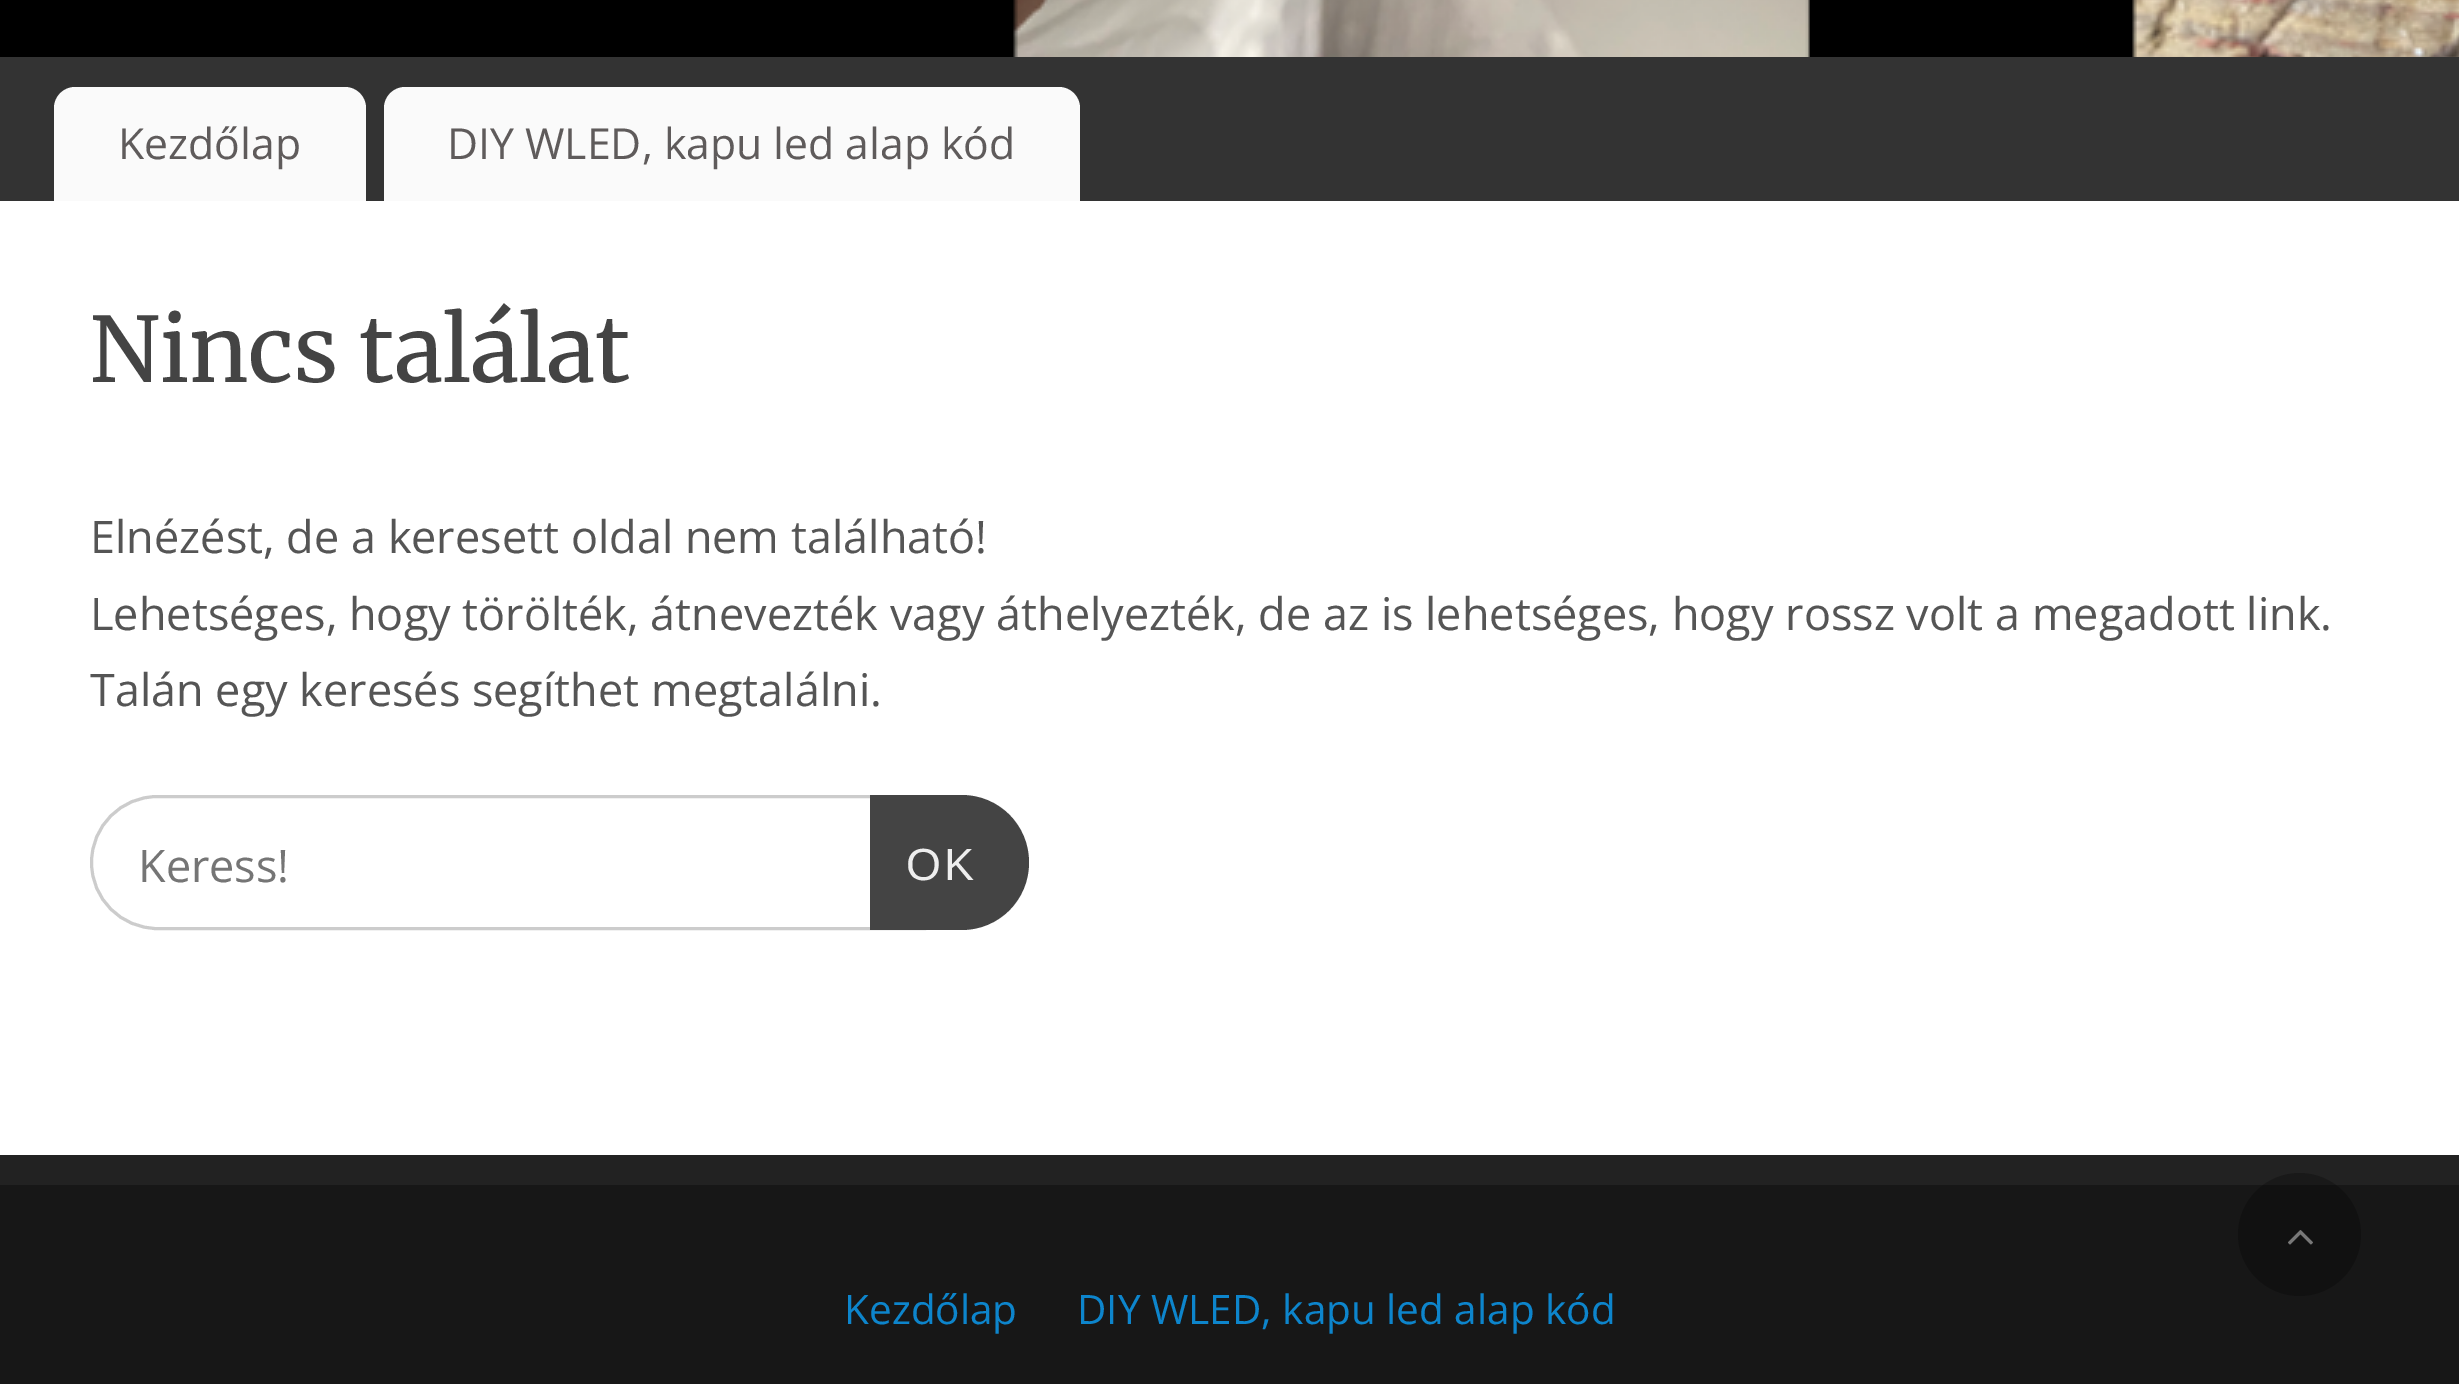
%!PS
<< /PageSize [2459 1384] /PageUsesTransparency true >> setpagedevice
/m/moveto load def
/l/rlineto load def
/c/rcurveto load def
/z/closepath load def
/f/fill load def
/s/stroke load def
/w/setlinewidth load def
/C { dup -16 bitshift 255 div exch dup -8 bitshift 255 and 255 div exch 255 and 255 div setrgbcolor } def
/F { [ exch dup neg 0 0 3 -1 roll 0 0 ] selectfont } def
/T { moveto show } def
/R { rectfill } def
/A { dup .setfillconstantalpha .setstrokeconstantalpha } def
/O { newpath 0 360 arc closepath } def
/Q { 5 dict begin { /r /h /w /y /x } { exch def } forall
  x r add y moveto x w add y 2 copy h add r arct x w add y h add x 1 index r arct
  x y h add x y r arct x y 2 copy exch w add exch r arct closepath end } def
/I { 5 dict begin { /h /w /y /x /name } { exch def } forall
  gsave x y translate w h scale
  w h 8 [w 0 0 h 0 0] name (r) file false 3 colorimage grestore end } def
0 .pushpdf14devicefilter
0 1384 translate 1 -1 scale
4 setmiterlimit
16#333333 C
0 0 2459 1384 R
(1.rgb) 0 0 2459 57 I
16#FAFAFA C
75 87 m 270 0 l 11.5 0 21 9.5 21 21 c 0 93 l -312 0 l 0 -93 l 0 -11.5 9.5 -21 21 -21 c z f
/OpenSans-Regular 42.75 F
16#5F5B5B C
(Kezdőlap) 118 159 T
16#FAFAFA C
405 87 m 654 0 l 11.5 0 21 9.5 21 21 c 0 93 l -696 0 l 0 -93 l 0 -11.5 9.5 -21 21 -21 c z f
16#5F5B5B C
(DIY WLED, kapu led alap kód) 447 159 T
16#FFFFFF C
0 201 2459 954 R
/Merriweather-Regular 90 F
16#444444 C
(Nincs találat) 90 382 T
/OpenSans-Regular 45 F
16#555555 C
(Elnézést, de a keresett oldal nem található!) 90 553 T
(Lehetséges, hogy törölték, átnevezték vagy áthelyezték, de az is lehetséges, hogy rossz volt a megadott link.) 90 630 T
(Talán egy keresés segíthet megtalálni.) 90 706 T
16#CCCCCC C
3 w
91.5 796.5 897 132 66 Q s
16#757575 C
(Keress!) 138 882 T
16#444444 C
870 795 m 91.5 0 l 37.5 0 67.5 30 67.5 67.5 c 0 37.5 -30 67.5 -67.5 67.5 c -91.5 0 l z f
/LiberationSans-Regular 45 F
16#EEEEEE C
906 880 m 3 0 (OK) ashow
16#222222 C
0 1155 2459 30 R
16#171717 C
0 1185 2459 199 R
/OpenSans-Regular 40.5 F
16#0D85CC C
(Kezdőlap) 844 1324 T
(DIY WLED, kapu led alap kód) 1077 1324 T
0.25 A
16#000000 C
2299.5 1234.5 61.5 O f
1 A
(2.rgb) 2288 1230 25 15 I
.poppdf14devicefilter showpage
